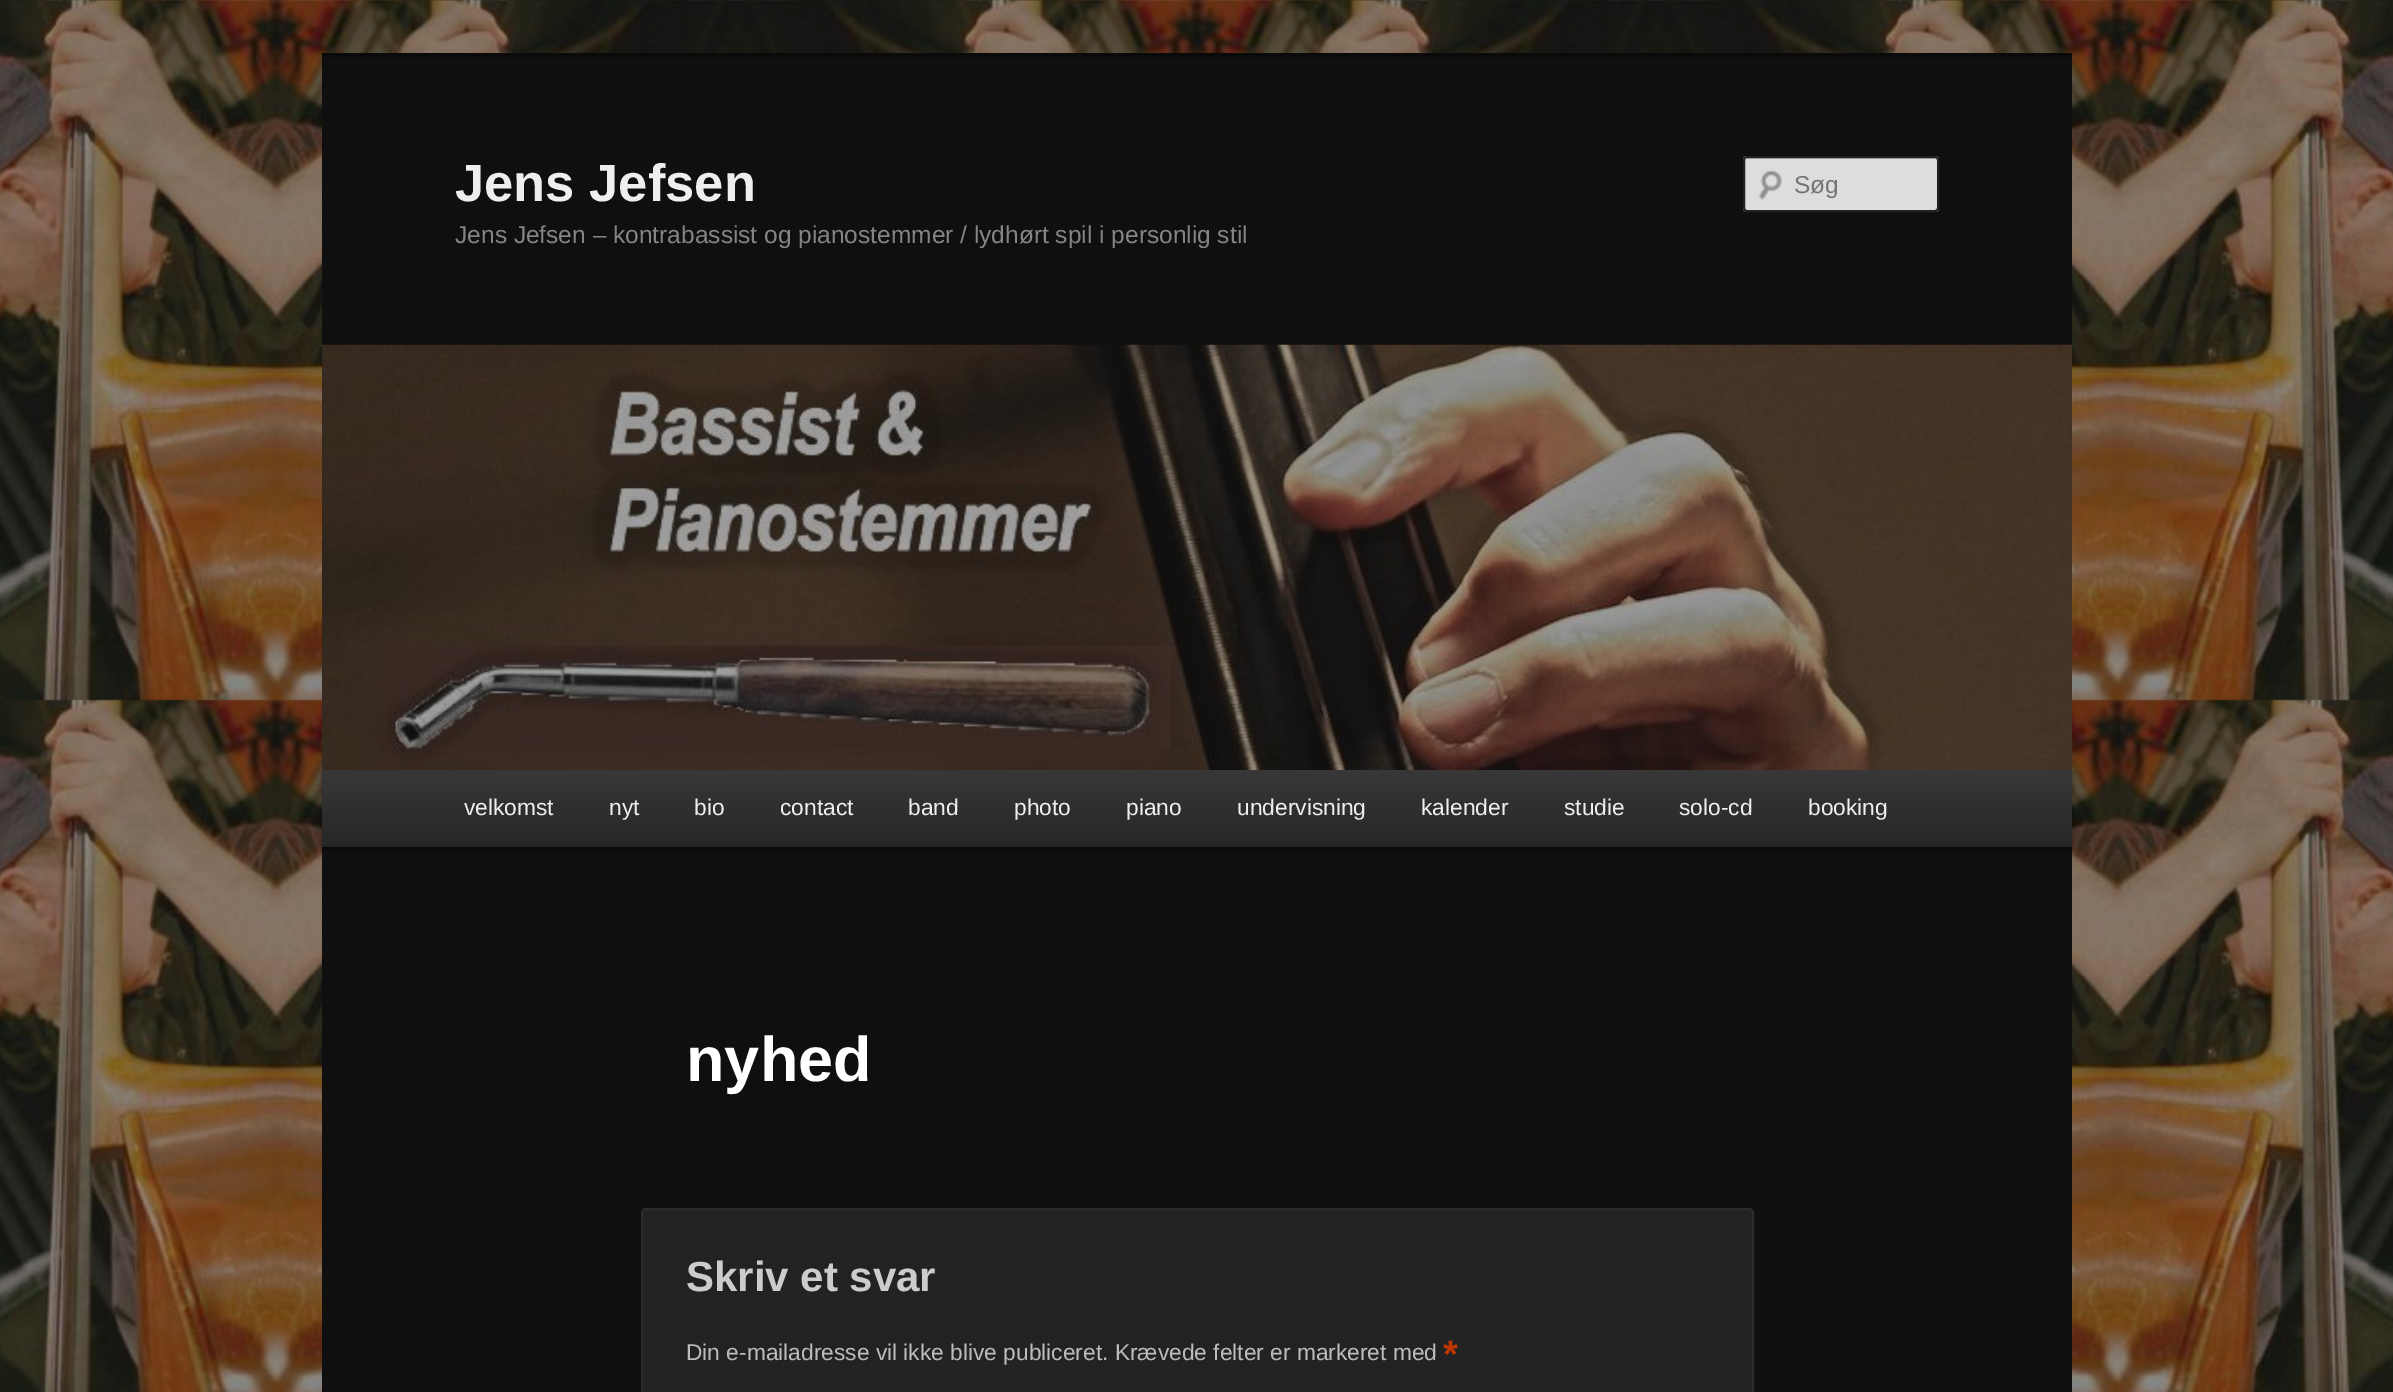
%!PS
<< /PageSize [2393 1392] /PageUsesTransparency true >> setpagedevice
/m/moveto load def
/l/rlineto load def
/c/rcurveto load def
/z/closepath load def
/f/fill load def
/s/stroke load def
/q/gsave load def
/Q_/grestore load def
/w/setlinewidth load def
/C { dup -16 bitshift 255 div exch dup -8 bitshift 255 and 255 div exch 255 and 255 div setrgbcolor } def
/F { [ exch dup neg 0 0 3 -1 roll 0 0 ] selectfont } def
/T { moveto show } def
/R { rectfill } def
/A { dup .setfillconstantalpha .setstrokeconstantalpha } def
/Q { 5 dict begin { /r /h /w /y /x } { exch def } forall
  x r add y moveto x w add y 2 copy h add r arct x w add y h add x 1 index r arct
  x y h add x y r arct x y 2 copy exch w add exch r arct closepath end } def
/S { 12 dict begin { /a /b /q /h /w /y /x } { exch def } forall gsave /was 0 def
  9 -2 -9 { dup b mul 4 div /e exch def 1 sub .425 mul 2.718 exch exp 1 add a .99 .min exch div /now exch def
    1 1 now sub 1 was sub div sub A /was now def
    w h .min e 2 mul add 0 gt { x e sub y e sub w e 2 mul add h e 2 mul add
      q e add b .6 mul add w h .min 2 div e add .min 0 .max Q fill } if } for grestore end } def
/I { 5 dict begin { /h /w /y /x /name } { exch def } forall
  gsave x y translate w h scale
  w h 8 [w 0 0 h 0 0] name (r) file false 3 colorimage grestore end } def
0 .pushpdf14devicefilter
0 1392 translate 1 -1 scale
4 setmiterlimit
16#FFFFFF C
0 0 2393 1392 R
(1.rgb) 0 0 2393 1392 I
16#0F0F0F C
322 57 1750 1335 R
16#0A0A0A C
322 53 1750 4 R
/LiberationSans-Bold 52.5 F
16#EEEEEE C
(Jens Jefsen) 455 201 T
/LiberationSans-Regular 24.5 F
16#858585 C
(Jens Jefsen – kontrabassist og pianostemmer / lydhørt spil i personlig stil) 455 243 T
16#DDDDDD C
1743 156 196 56 4 Q f
(2.rgb) 1758 170 24 30 I
16#C7C7C7 C
1746 159 m 190 0 l 1 2 l 0 -1 l 0 -1 -1 -2 -2 -2 c -188 0 l -1 0 -2 1 -2 2 c 0 1 l z f
16#222222 C
2 w
1744 157 194 54 3 Q s
16#757575 C
(Søg) 1794 193 T
16#000000 C
322 772 1750 77 0 2 .4 S
(3.rgb) 322 344 1750 426 I
q 322 770 m 1750 0 l 0 75 l -1750 0 l z clip newpath
<< /ShadingType 2 /ColorSpace /DeviceRGB /Coords [1197 770 1197 845] /Extend [true true] /Function << /FunctionType 2 /Domain [0 1] /C0 [.22 .22 .22] /C1 [.153 .153 .153] /N 1 >> >> shfill Q_
16#222222 C
322 845 1750 2 R
/LiberationSans-Regular 22.75 F
16#EEEEEE C
(velkomst) 464 815 T
(nyt) 609 815 T
(bio) 694 815 T
(contact) 780 815 T
(band) 908 815 T
(photo) 1014 815 T
(piano) 1126 815 T
(undervisning) 1237 815 T
(kalender) 1421 815 T
(studie) 1564 815 T
(solo-cd) 1679 815 T
(booking) 1808 815 T
/LiberationSans-Bold 63 F
16#FFFFFF C
(nyhed) 686 1081 T
16#222222 C
642 1209 1111 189 4 Q q f Q_
16#2C2C2C C
s
/LiberationSans-Bold 42 F
16#CCCCCC C
(Skriv et svar) 686 1291 T
/LiberationSans-Regular 22.75 F
16#BBBBBB C
(Din e-mailadresse vil ikke blive publiceret. Krævede felter er markeret med) 686 1360 T
/LiberationSans-Bold 38 F
16#BD3500 C
(*) 1443 1367 T
.poppdf14devicefilter showpage
